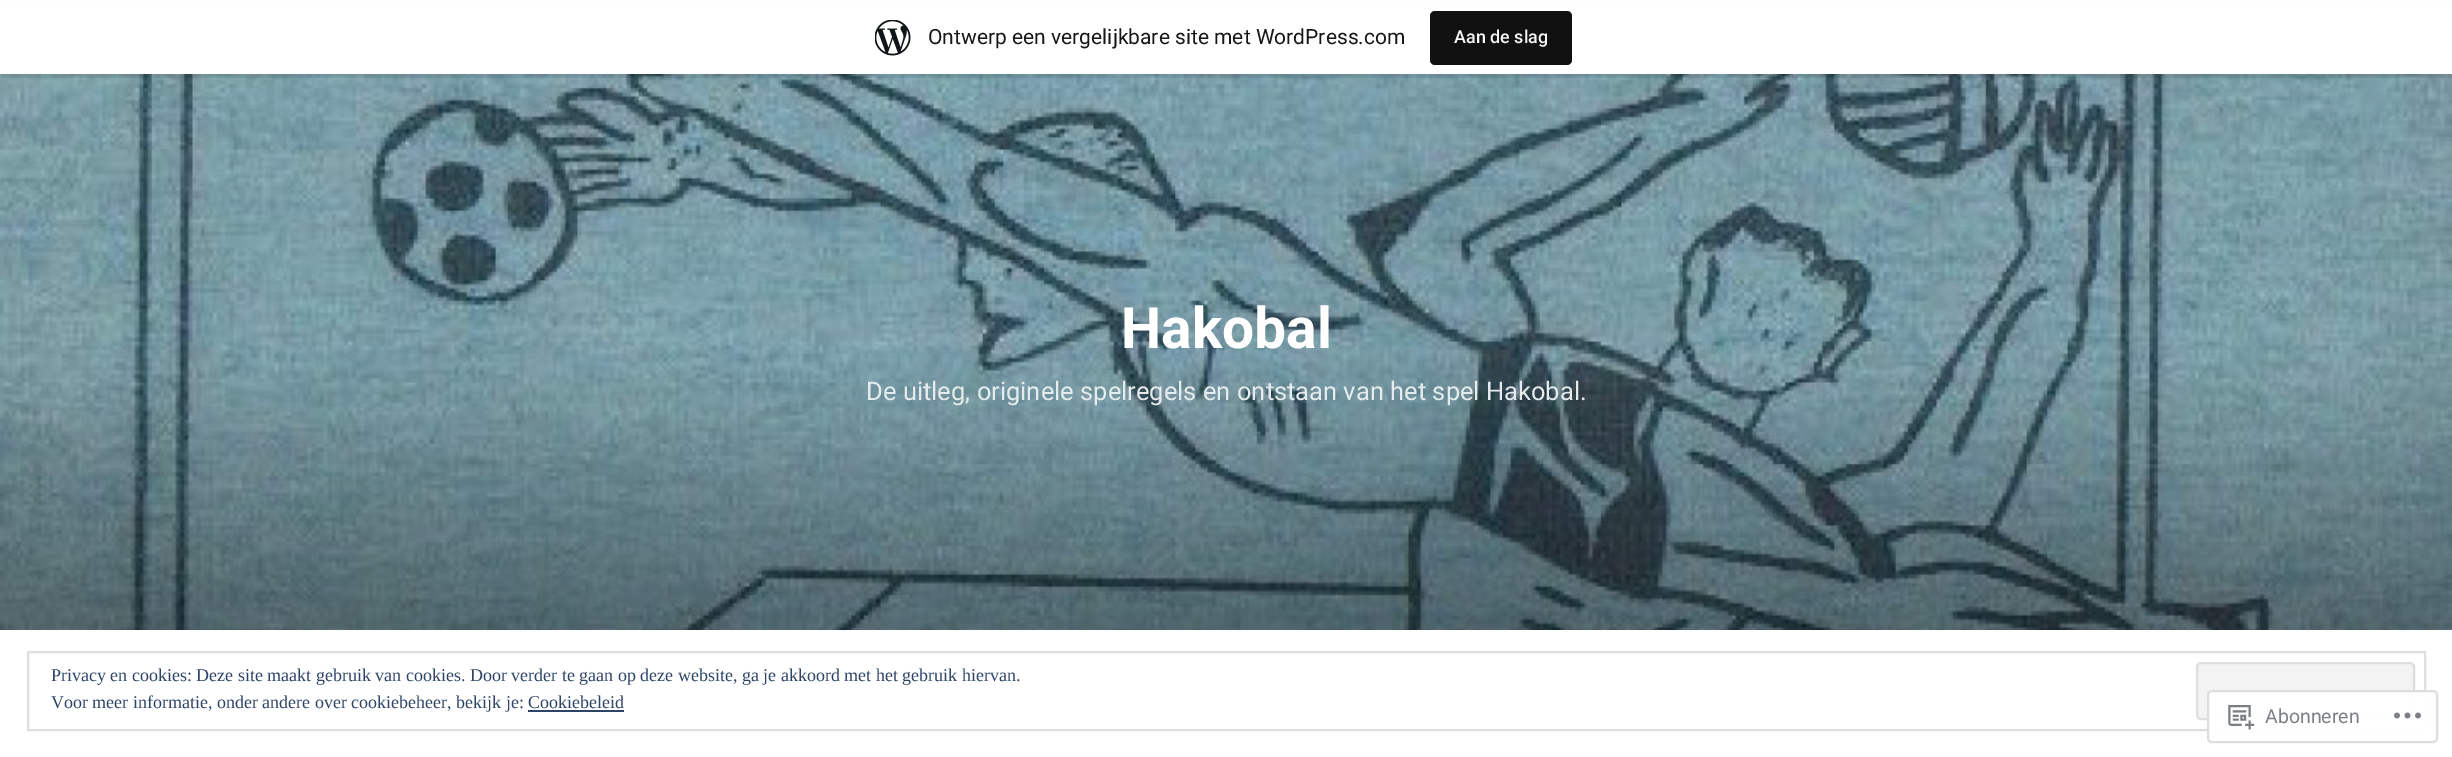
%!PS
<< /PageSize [2452 757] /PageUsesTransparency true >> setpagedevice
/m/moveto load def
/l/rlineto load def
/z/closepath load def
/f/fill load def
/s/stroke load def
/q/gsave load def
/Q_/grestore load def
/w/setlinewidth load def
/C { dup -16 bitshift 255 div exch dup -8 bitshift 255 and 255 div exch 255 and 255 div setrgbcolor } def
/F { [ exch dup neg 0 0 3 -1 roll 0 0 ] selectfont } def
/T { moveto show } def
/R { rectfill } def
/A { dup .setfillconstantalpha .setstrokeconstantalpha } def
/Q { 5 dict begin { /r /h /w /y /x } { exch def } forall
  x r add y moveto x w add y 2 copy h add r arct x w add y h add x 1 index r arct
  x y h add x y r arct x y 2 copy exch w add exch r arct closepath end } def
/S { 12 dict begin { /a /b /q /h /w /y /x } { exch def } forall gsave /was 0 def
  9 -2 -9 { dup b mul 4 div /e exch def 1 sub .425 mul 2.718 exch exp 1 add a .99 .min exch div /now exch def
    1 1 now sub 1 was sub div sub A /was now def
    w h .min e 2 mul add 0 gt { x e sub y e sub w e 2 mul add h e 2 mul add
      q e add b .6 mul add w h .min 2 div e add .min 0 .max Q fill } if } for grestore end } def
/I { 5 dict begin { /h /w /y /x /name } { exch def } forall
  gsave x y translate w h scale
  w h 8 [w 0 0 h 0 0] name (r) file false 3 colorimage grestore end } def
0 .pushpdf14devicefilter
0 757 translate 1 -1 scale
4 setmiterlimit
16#FFFFFF C
0 0 2452 757 R
(2.rgb) 0 74 2452 556 I
16#000000 C
0 2 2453 73 0 1.5 .05 S
0.08 A
2 74 m 0 4 l 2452 0 l 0 -73 l -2 0 l 0 69 l z f
1 A
16#FFFFFF C
0 1 2452 73 R
(1.rgb) 875 20 36 36 I
/Roboto-Regular 21 F
16#171717 C
(Ontwerp een vergelijkbare site met WordPress.com) 928 44 T
16#111111 C
1430 11 142 54 5 Q f
/Roboto-Medium 18 F
16#F6F7F7 C
(Aan de slag) 1454 43 T
/Roboto-Bold 57 F
16#FFFFFF C
(Hakobal) 1121 348 T
/Roboto-Regular 25.5 F
16#E6EBED C
(De uitleg, originele spelregels en ontstaan van het spel Hakobal.) 866 400 T
16#DEDEDE C
2 w
28 652 2397 78 rectstroke
/LiberationSerif-Regular 18 F
16#2E4467 C
(Privacy en cookies: Deze site maakt gebruik van cookies. Door verder te gaan op deze website, ga je akkoord met het gebruik hiervan.) 51 681 T
16#F3F3F3 C
2197 663 217 56 4 Q q f Q_
16#DEDEDE C
s
16#2E4467 C
(Voor meer informatie, onder andere over cookiebeheer, bekijk je: Cookiebeleid) 51 708 T
528 710 96 2 R
0.98 A
16#FFFFFF C
2207 690 231 53 5 Q f
16#DCDCDE C
2208 691 229 51 4 Q s
1 A
(3.rgb) 2228 705 27 25 I
/Roboto-Regular 19.5 F
16#7B7F84 C
(Abonneren) 2265 723 T
(4.rgb) 2394 712 27 7 I
.poppdf14devicefilter showpage
